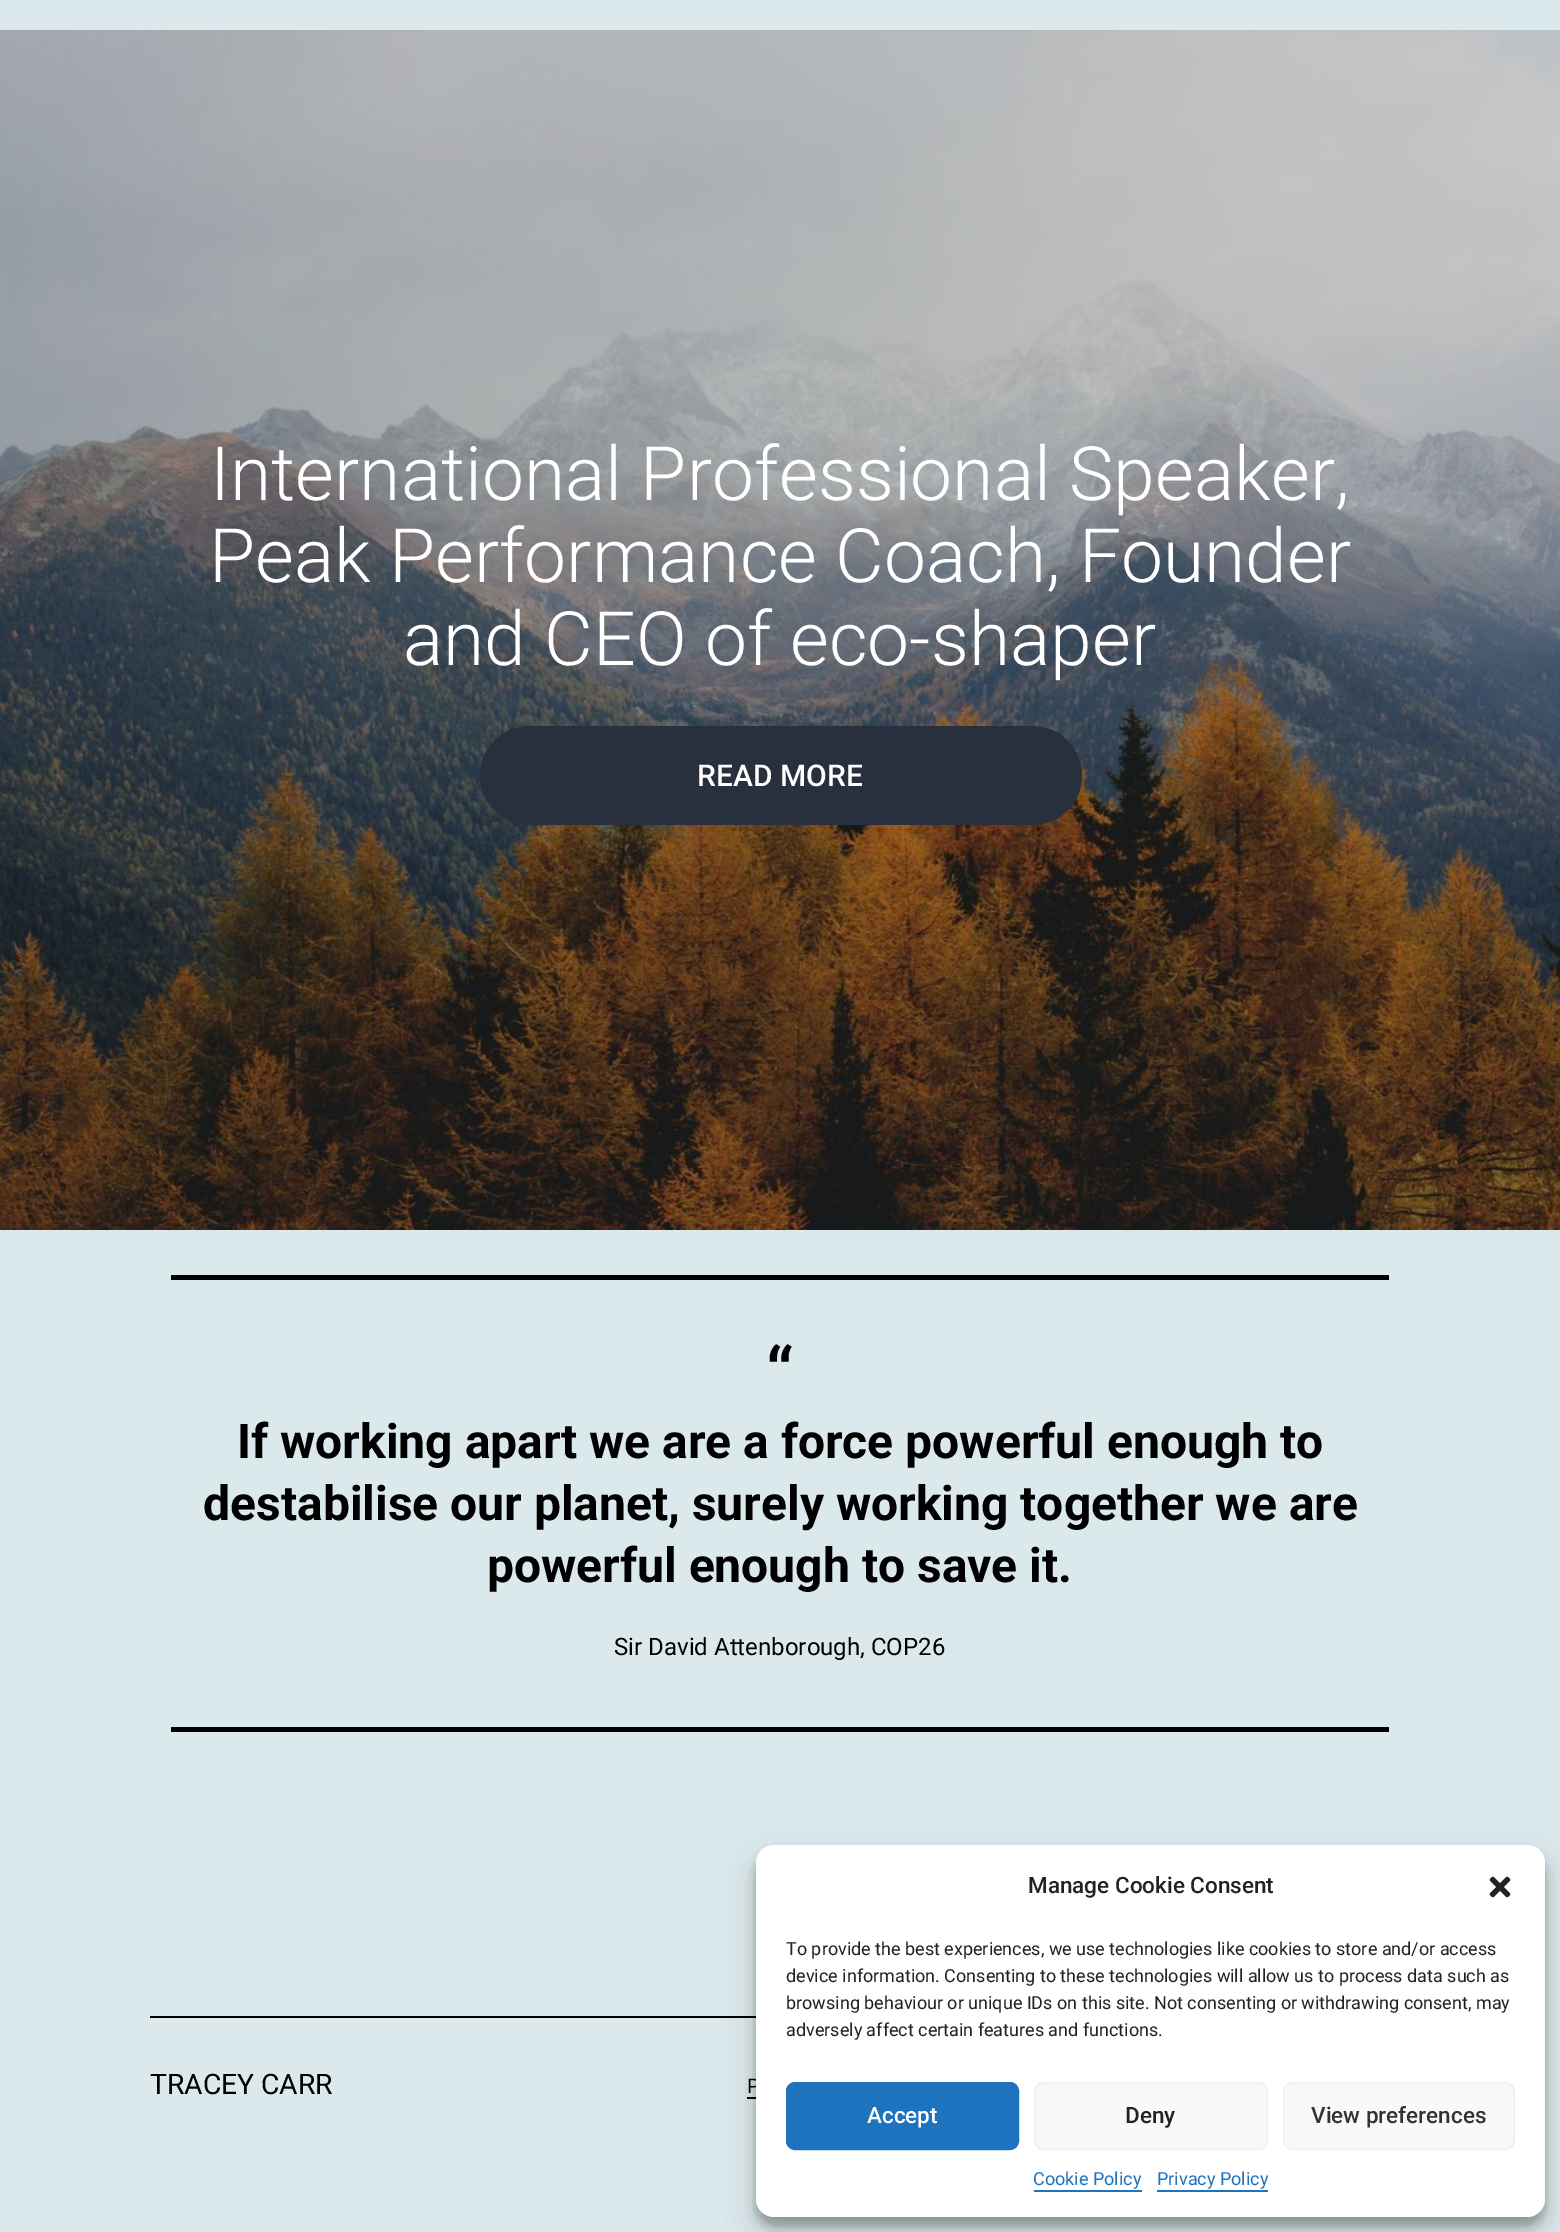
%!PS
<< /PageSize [1560 2232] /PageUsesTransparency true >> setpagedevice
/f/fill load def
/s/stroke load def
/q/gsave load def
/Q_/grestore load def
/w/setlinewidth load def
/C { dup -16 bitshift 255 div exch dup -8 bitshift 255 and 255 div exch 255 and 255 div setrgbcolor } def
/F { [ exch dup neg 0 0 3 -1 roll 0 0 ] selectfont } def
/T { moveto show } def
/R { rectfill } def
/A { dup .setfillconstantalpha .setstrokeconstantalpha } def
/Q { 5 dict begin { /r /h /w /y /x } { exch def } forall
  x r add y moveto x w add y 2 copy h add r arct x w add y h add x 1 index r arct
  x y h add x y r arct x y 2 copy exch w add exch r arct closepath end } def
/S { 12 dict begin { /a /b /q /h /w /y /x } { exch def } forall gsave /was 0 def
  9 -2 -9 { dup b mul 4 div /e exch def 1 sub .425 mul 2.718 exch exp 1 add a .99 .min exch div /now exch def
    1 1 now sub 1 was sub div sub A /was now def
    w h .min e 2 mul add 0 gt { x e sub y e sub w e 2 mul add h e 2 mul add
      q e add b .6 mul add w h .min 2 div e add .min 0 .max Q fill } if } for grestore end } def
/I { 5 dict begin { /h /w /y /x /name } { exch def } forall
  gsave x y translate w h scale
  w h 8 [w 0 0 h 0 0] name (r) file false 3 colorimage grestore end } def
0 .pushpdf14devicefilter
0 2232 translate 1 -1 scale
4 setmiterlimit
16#DCE9EC C
0 0 1560 2232 R
(1.rgb) 0 30 1560 1200 I
/Roboto-Light 75 F
16#FFFFFF C
(International Professional Speaker,) 210 500 T
(Peak Performance Coach, Founder) 209 582 T
(and CEO of eco-shaper) 403 665 T
16#28303D C
480 726 602 99 49.5 Q f
/Roboto-Medium 30 F
16#FFFFFF C
(READ MORE) 697 786 T
16#000000 C
171 1275 1218 5 R
171 1727 1218 5 R
/Roboto-Medium 72 F
(“) 766 1399 T
/Roboto-Bold 48 F
(If working apart we are a force powerful enough to) 237 1458 T
(destabilise our planet, surely working together we are) 203 1520 T
(powerful enough to save it.) 487 1582 T
/Roboto-Regular 24 F
(Sir David Attenborough, COP26) 614 1655 T
150 2016 606 2 R
/Roboto-Regular 28.25 F
(TRACEY CARR) 150 2094 T
/Roboto-Regular 20 F
(P) 747 2093 T
747 2097 9 2 R
756 1854 789 372 18 4.5 .23 S
756 1860 789 372 18 15 .19 S
16#FFFFFF C
756 1845 789 372 18 Q f
/Roboto-Medium 22.5 F
16#222222 C
(Manage Cookie Consent) 1028 1893 T
(2.rgb) 1489 1876 22 22 I
/Roboto-Regular 18 F
(To provide the best experiences, we use technologies like cookies to store and/or access) 786 1955 T
(device information. Consenting to these technologies will allow us to process data such as) 786 1982 T
(browsing behaviour or unique IDs on this site. Not consenting or withdrawing consent, may) 786 2009 T
(adversely affect certain features and functions.) 786 2036 T
16#1E73BE C
787 2083 231 66 8 Q q f Q_
2 w
s
/Roboto-Medium 22.5 F
16#FFFFFF C
(Accept) 867 2123 T
16#F9F9F9 C
1035 2083 232 66 8 Q q f Q_
16#F2F2F2 C
s
16#222222 C
(Deny) 1125 2123 T
16#F9F9F9 C
1284 2083 230 66 8 Q q f Q_
16#F2F2F2 C
s
16#333333 C
(View preferences) 1311 2123 T
/Roboto-Regular 18 F
16#1E73BE C
(Cookie Policy) 1033 2185 T
1034 2190 108 2 R
(Privacy Policy) 1157 2185 T
1157 2190 111 2 R
.poppdf14devicefilter showpage
